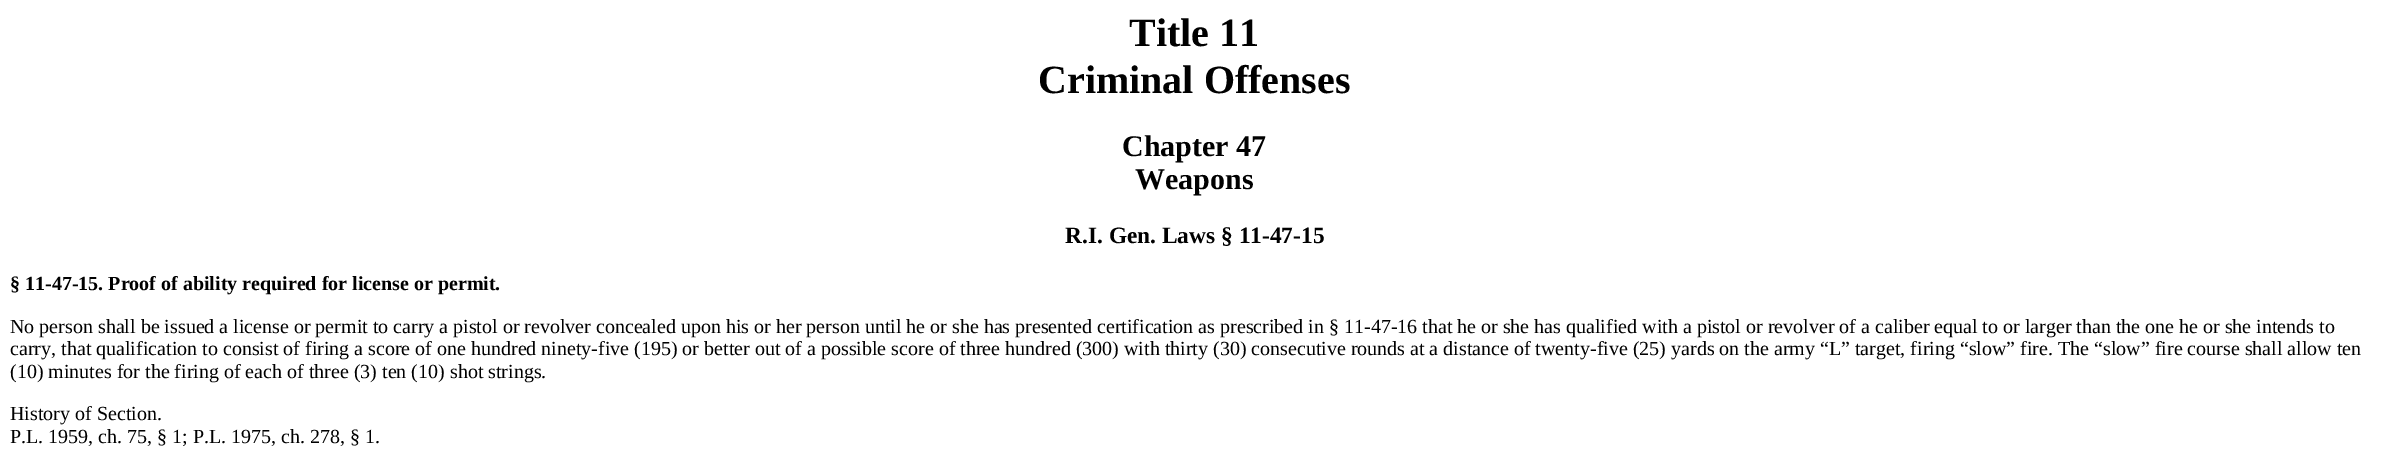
%!PS
<< /PageSize [2388 468] >> setpagedevice
/C { dup -16 bitshift 255 div exch dup -8 bitshift 255 and 255 div exch 255 and 255 div setrgbcolor } def
/F { [ exch dup neg 0 0 3 -1 roll 0 0 ] selectfont } def
/T { moveto show } def
/R { rectfill } def
0 468 translate 1 -1 scale
4 setmiterlimit
16#FFFFFF C
0 0 2388 468 R
/LiberationSerif-Bold 40 F
16#000000 C
(Title 11) 1129 46 T
(Criminal Offenses) 1038 93 T
/LiberationSerif-Bold 30 F
(Chapter 47) 1122 156 T
(Weapons) 1135 189 T
/LiberationSerif-Bold 23.4 F
(R.I. Gen. Laws § 11-47-15) 1065 243 T
/LiberationSerif-Bold 20 F
(§ 11-47-15. Proof of ability required for license or permit.) 10 290 T
/LiberationSerif-Regular 20 F
(No person shall be issued a license or permit to carry a pistol or revolver concealed upon his or her person until he or she has presented certification as prescribed in § 11-47-16 that he or she has qualified with a pistol or revolver of a caliber equal to or larger than the one he or she intends to) 10 333 T
(carry, that qualification to consist of firing a score of one hundred ninety-five \(195\) or better out of a possible score of three hundred \(300\) with thirty \(30\) consecutive rounds at a distance of twenty-five \(25\) yards on the army “L” target, firing “slow” fire. The “slow” fire course shall allow ten) 10 355 T
(\(10\) minutes for the firing of each of three \(3\) ten \(10\) shot strings.) 10 378 T
(History of Section.) 10 420 T
(P.L. 1959, ch. 75, § 1; P.L. 1975, ch. 278, § 1.) 10 443 T
showpage
